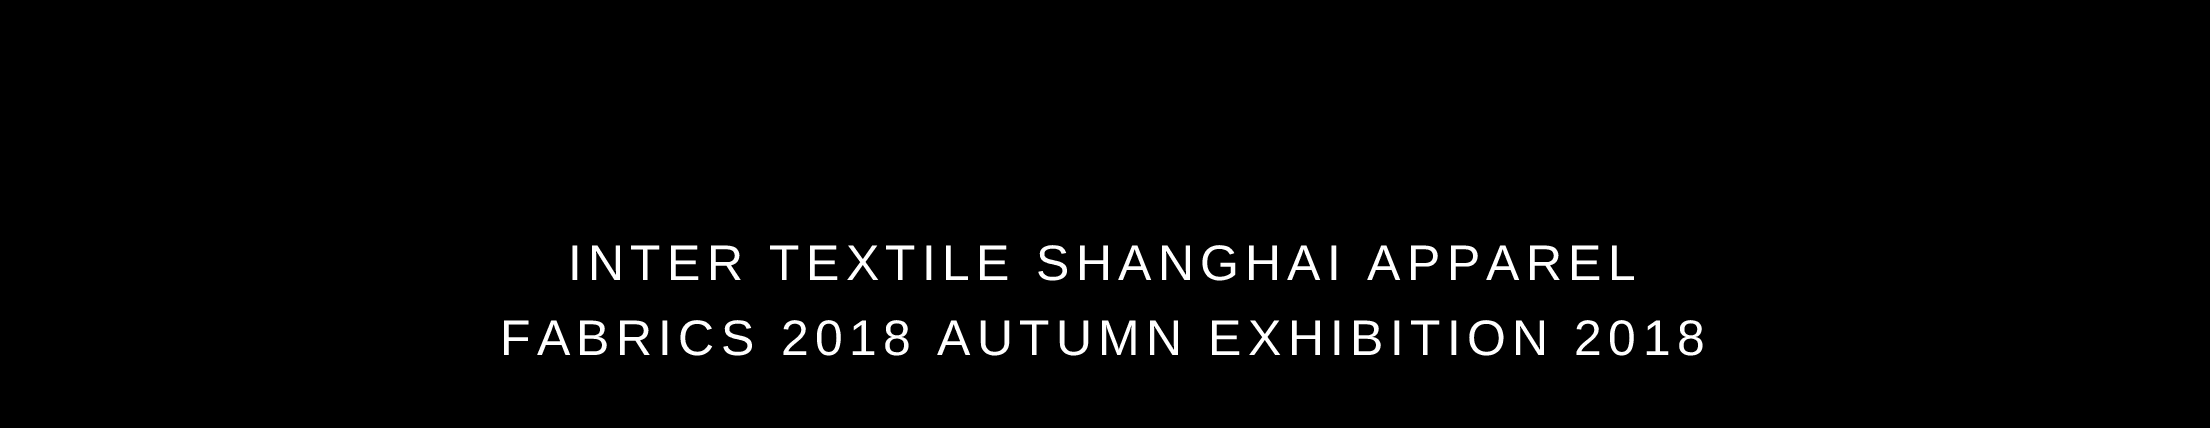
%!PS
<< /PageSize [2210 428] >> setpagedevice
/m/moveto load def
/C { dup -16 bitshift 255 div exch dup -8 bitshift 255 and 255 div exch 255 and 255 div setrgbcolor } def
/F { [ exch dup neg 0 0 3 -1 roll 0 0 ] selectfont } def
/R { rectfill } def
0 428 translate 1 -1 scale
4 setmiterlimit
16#000000 C
0 0 2210 428 R
/LiberationSans-Regular 50 F
16#FFFFFF C
568 280 m 6.25 0 (INTER TEXTILE SHANGHAI APPAREL) ashow
500 355 m 6.25 0 (FABRICS 2018 AUTUMN EXHIBITION 2018) ashow
showpage
